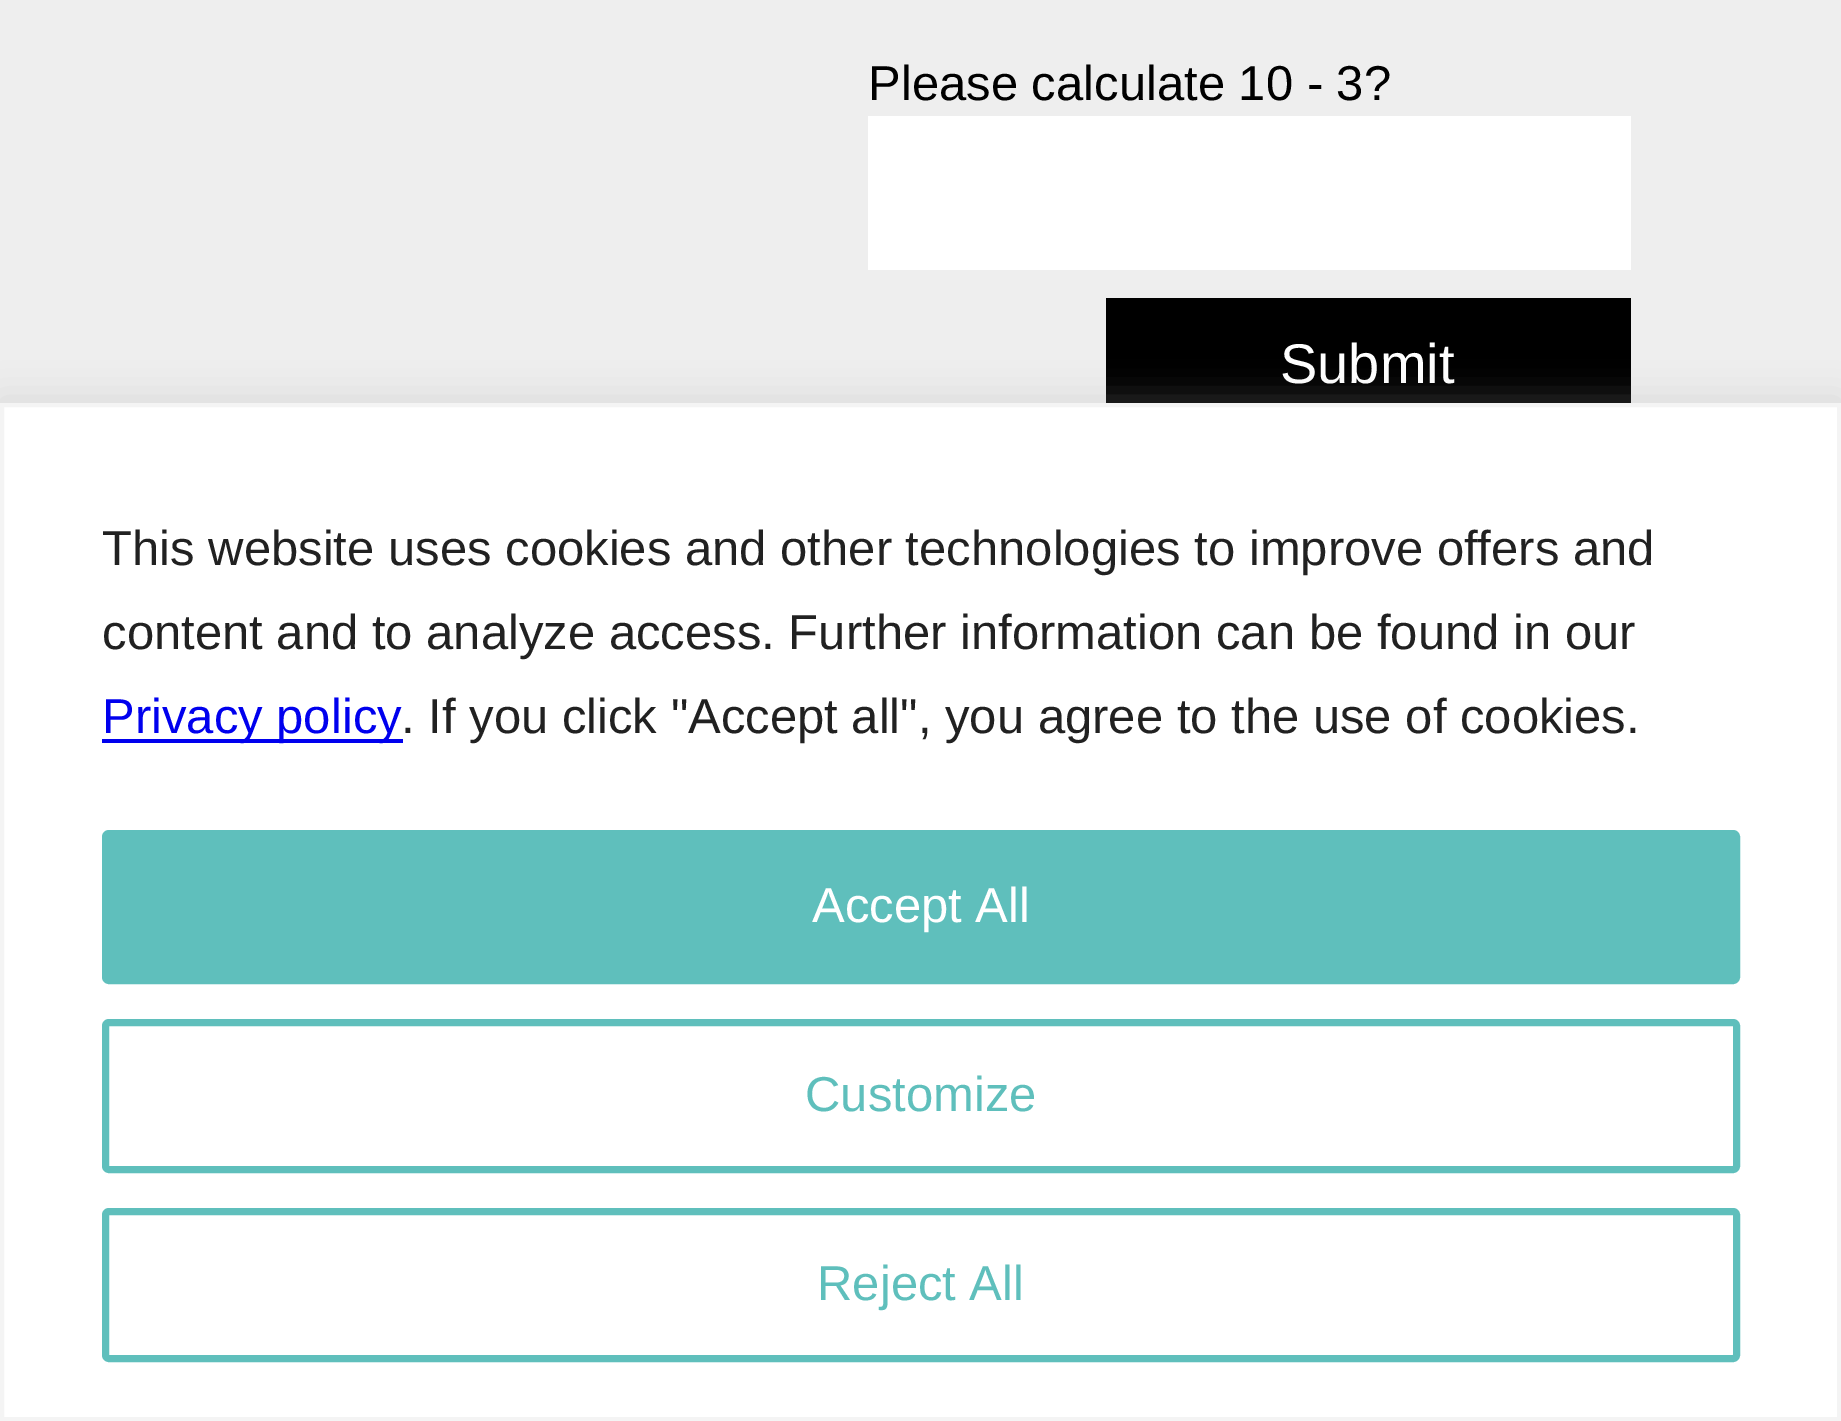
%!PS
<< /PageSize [1841 1421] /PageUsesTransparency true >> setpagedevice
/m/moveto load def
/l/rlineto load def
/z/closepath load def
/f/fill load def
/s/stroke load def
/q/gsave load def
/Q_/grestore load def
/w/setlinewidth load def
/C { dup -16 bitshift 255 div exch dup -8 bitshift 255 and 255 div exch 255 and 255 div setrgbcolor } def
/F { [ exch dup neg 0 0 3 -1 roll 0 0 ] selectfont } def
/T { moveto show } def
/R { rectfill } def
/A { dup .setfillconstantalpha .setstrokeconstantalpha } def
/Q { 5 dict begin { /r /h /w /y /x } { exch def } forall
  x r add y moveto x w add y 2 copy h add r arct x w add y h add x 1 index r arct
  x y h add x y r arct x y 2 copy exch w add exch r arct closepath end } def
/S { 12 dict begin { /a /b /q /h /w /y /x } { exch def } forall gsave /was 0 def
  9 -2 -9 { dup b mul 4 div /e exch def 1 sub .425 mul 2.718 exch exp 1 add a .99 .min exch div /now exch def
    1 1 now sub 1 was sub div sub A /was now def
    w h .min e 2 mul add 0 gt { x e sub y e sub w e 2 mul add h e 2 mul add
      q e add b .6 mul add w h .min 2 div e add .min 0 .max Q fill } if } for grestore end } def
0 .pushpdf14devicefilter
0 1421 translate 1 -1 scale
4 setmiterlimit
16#EEEEEE C
0 0 1841 1421 R
/LiberationSans-Regular 49 F
16#000000 C
(Please calculate 10 - 3?) 868 100 T
16#FFFFFF C
868 116 763 154 R
16#000000 C
1106 298 525 105 R
/LiberationSans-Regular 56 F
16#FFFFFF C
(Submit) 1280 383 T
16#ACABAB C
0 399 1841 1019 0 17.5 .3 S
16#FFFFFF C
2 405 m 1837 0 l 0 1014 l -1837 0 l z q f Q_
16#F4F4F4 C
4 w
s
/LiberationSans-Regular 49 F
16#212121 C
(This website uses cookies and other technologies to improve offers and) 102 565 T
(content and to analyze access. Further information can be found in our) 102 649 T
16#0000EE C
102 739 301 4 R
(Privacy policy) 102 733 T
16#212121 C
(. If you click "Accept all", you agree to the use of cookies.) 401 733 T
16#5FBFBC C
105.5 833.5 1631 147 3.5 Q q f Q_
7 w
s
16#FFFFFF C
(Accept All) 812 922 T
16#5FBFBC C
105.5 1022.5 1631 147 3.5 Q s
(Customize) 805 1111 T
105.5 1211.5 1631 147 3.5 Q s
(Reject All) 817 1300 T
.poppdf14devicefilter showpage
